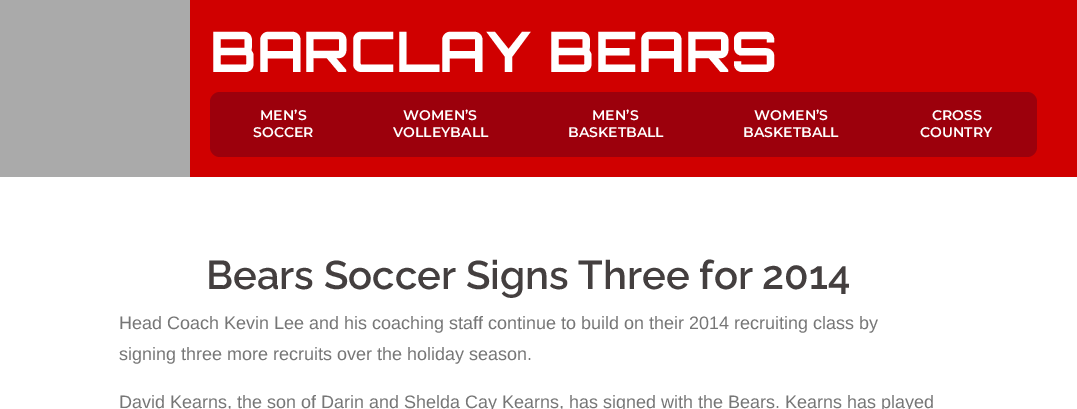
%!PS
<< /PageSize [1077 409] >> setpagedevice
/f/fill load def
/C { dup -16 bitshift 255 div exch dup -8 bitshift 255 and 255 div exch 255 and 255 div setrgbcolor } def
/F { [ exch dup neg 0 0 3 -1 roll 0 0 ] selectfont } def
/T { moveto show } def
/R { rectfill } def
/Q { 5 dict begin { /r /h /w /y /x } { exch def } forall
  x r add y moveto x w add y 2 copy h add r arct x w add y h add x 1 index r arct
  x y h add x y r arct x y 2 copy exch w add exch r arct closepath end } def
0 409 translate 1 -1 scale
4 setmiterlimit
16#FFFFFF C
0 0 1077 409 R
16#D00000 C
190 0 887 177 R
16#AAAAAA C
0 0 190 177 R
/Orbitron-Bold 56 F
16#FFFFFF C
(BARCLAY BEARS) 210 72 T
16#9C000C C
210 92 827 65 10 Q f
/Montserrat-Thin 14 F
16#FFFFFF C
(MEN’S) 260 120 T
(SOCCER) 253 137 T
(WOMEN’S) 403 120 T
(VOLLEYBALL) 393 137 T
(MEN’S) 592 120 T
(BASKETBALL) 568 137 T
(WOMEN’S) 754 120 T
(BASKETBALL) 743 137 T
(CROSS) 932 120 T
(COUNTRY) 920 137 T
/Raleway-SemiBold 40 F
16#443F3F C
(Bears Soccer Signs Three for 2014) 206 289 T
/LiberationSans-Regular 18 F
16#767676 C
(Head Coach Kevin Lee and his coaching staff continue to build on their 2014 recruiting class by) 119 329 T
(signing three more recruits over the holiday season.) 119 360 T
(David Kearns, the son of Darin and Shelda Cay Kearns, has signed with the Bears. Kearns has played) 119 408 T
showpage
